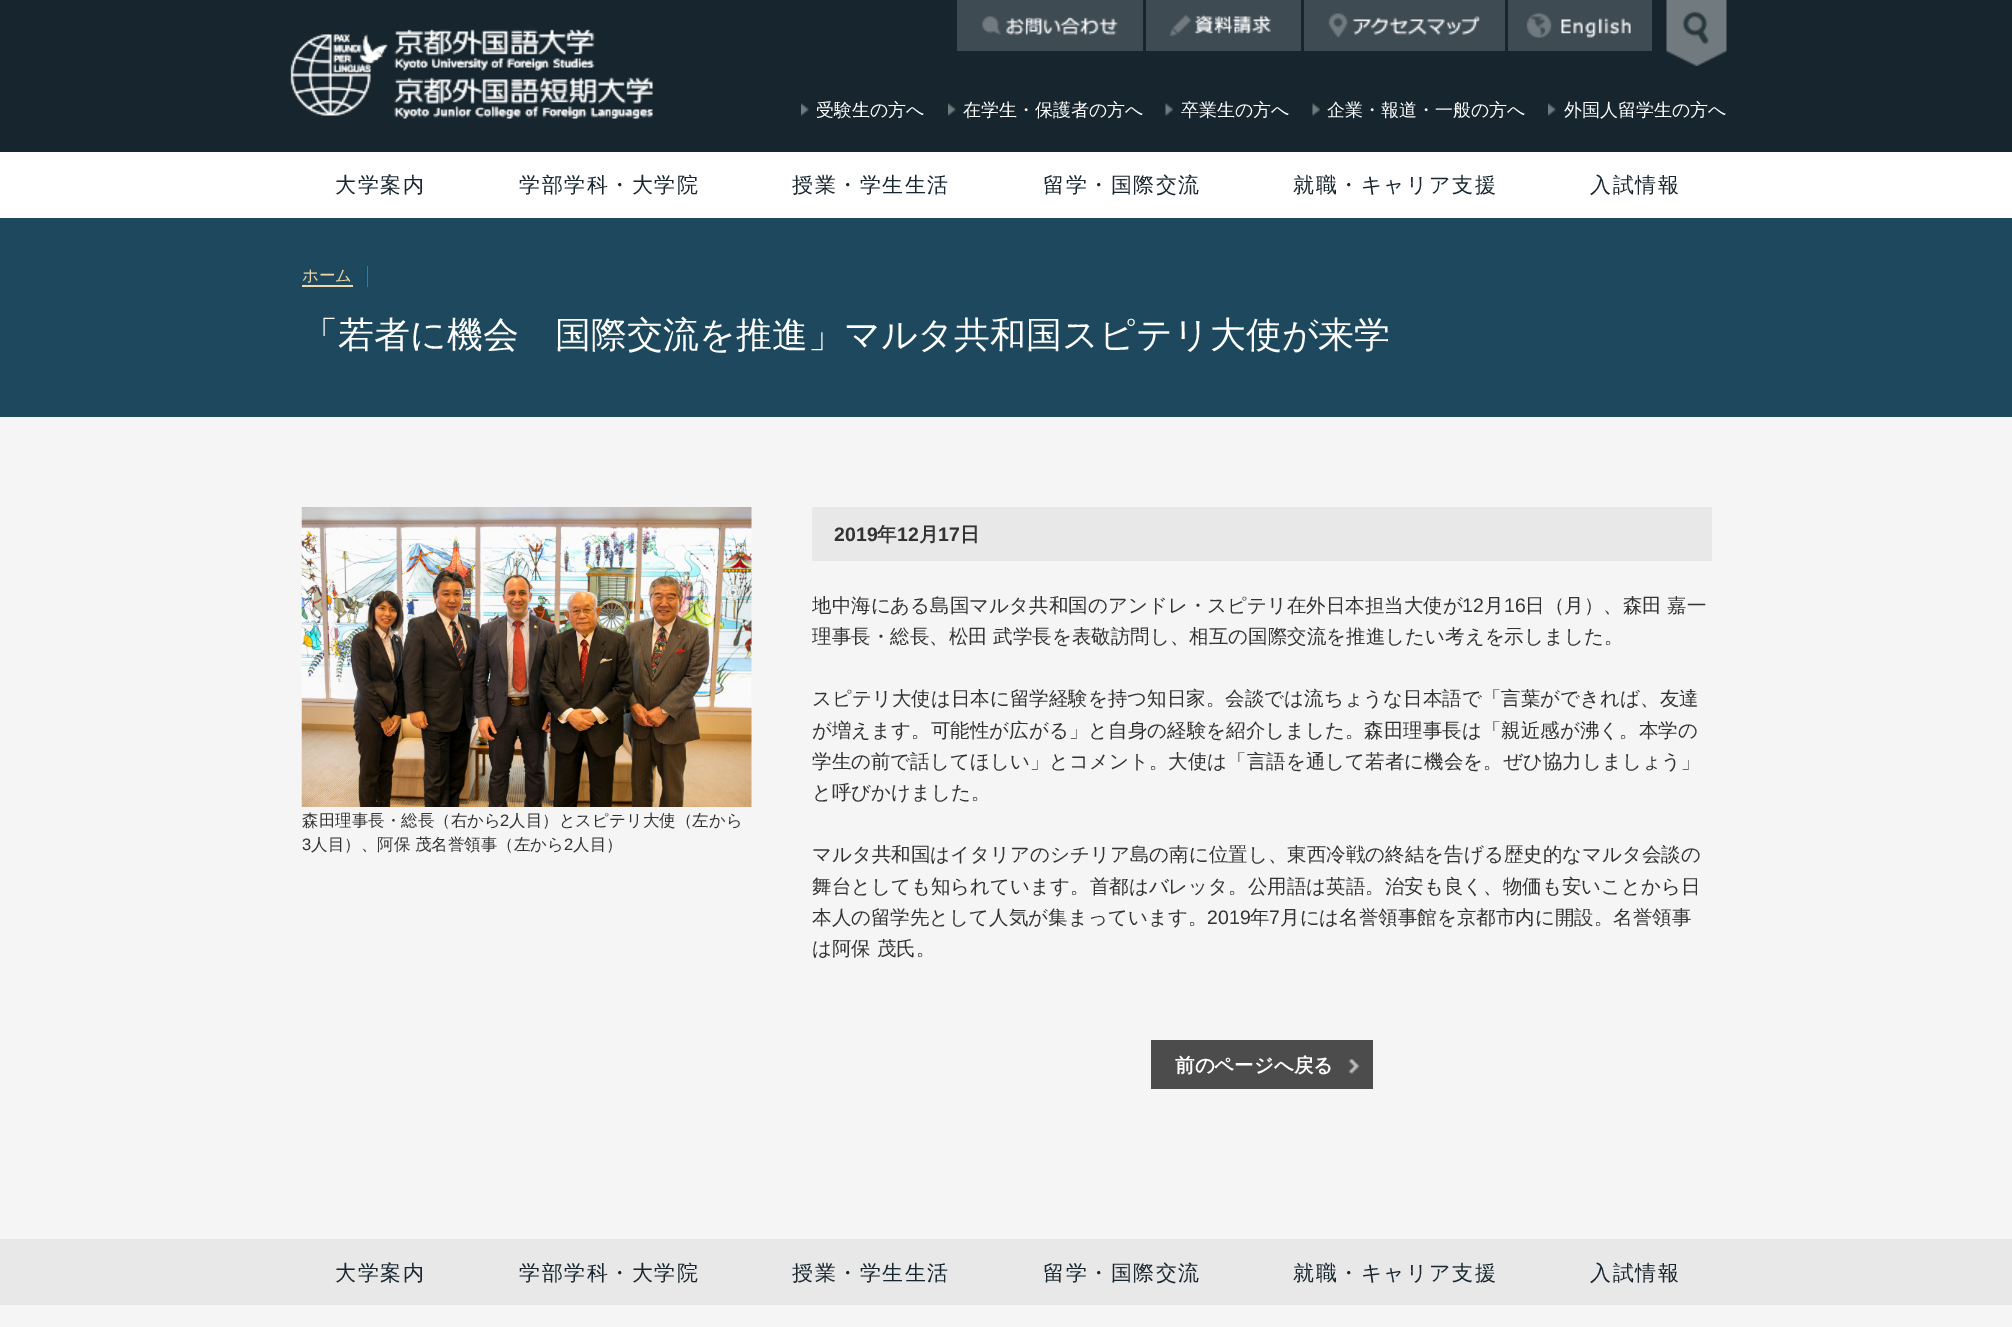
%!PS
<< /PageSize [2012 1327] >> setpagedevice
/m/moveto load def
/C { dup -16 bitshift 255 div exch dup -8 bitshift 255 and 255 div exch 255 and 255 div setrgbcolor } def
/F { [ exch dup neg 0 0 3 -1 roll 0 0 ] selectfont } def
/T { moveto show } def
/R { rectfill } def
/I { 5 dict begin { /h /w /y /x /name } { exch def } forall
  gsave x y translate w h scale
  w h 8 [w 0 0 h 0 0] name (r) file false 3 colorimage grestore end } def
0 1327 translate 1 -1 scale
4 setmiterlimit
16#F5F5F5 C
0 0 2012 1327 R
16#17262E C
0 0 2012 152 R
(1.rgb) 1666 0 61 66 I
(2.rgb) 290 29 363 90 I
16#3E4B52 C
957 0 186 51 R
(3.rgb) 982 16 136 19 I
1146 0 155 51 R
(4.rgb) 1170 14 101 23 I
1304 0 201 51 R
(5.rgb) 1328 13 152 25 I
1508 0 144 51 R
(6.rgb) 1526 13 105 25 I
(7.rgb) 801 103 8 13 I
/WenQuanYiZenHei-Medium 18 F
16#FFFFFF C
(受験生の方へ) 816 116 T
(7.rgb) 948 103 8 13 I
(在学生・保護者の方へ) 963 116 T
(8.rgb) 1165 103 8 13 I
(卒業生の方へ) 1181 116 T
(8.rgb) 1312 103 8 13 I
(企業・報道・一般の方へ) 1327 116 T
(7.rgb) 1548 103 8 13 I
(外国人留学生の方へ) 1564 116 T
0 152 2012 66 R
/WenQuanYiZenHei-Medium 21 F
16#17262F C
335 192 m 1.5 0 (大学案内) ashow
519 192 m 1.5 0 (学部学科・大学院) ashow
792 192 m 1.5 0 (授業・学生生活) ashow
1043 192 m 1.5 0 (留学・国際交流) ashow
1293 192 m 1.5 0 (就職・キャリア支援) ashow
1590 192 m 1.5 0 (入試情報) ashow
16#1D485E C
0 218 2012 199 R
16#3D7A99 C
367 266 1 21 R
16#0F4865 C
365 266 2 21 R
16#EFD9AB C
302 285 51 2 R
/WenQuanYiZenHei-Medium 16.5 F
(ホーム) 302 281 T
/WenQuanYiZenHei-Medium 36 F
16#FFFFFF C
(「若者に機会　国際交流を推進」マルタ共和国スピテリ大使が来学) 302 347 T
(9.rgb) 301 507 451 300 I
/WenQuanYiZenHei-Medium 16.5 F
16#333333 C
(森田理事長・総長（右から) 302 826 T
/LiberationSans-Regular 16.5 F
(2) 500 826 T
/WenQuanYiZenHei-Medium 16.5 F
(人目）とスピテリ大使（左から) 509 826 T
/LiberationSans-Regular 16.5 F
(3) 302 850 T
/WenQuanYiZenHei-Medium 16.5 F
(人目）、阿保 茂名誉領事（左から) 311 850 T
/LiberationSans-Regular 16.5 F
(2) 564 850 T
/WenQuanYiZenHei-Medium 16.5 F
(人目）) 573 850 T
16#E8E8E8 C
812 507 900 54 R
/LiberationSans-Bold 19.5 F
16#333333 C
(2019) 834 541 T
/WenQuanYiZenHei-Bold 19.5 F
(年) 877 541 T
/LiberationSans-Bold 19.5 F
(12) 897 541 T
/WenQuanYiZenHei-Bold 19.5 F
(月) 919 541 T
/LiberationSans-Bold 19.5 F
(17) 938 541 T
/WenQuanYiZenHei-Bold 19.5 F
(日) 960 541 T
/WenQuanYiZenHei-Medium 19.5 F
(地中海にある島国マルタ共和国のアンドレ・スピテリ在外日本担当大使が) 812 612 T
/LiberationSans-Regular 19.5 F
(12) 1462 612 T
/WenQuanYiZenHei-Medium 19.5 F
(月) 1484 612 T
/LiberationSans-Regular 19.5 F
(16) 1504 612 T
/WenQuanYiZenHei-Medium 19.5 F
(日（月）、森田 嘉一) 1525 612 T
(理事長・総長、松田 武学長を表敬訪問し、相互の国際交流を推進したい考えを示しました。) 812 643 T
(スピテリ大使は日本に留学経験を持つ知日家。会談では流ちょうな日本語で「言葉ができれば、友達) 812 705 T
(が増えます。可能性が広がる」と自身の経験を紹介しました。森田理事長は「親近感が沸く。本学の) 812 737 T
(学生の前で話してほしい」とコメント。大使は「言語を通して若者に機会を。ぜひ協力しましょう」) 812 768 T
(と呼びかけました。) 812 799 T
(マルタ共和国はイタリアのシチリア島の南に位置し、東西冷戦の終結を告げる歴史的なマルタ会談の) 812 861 T
(舞台としても知られています。首都はバレッタ。公用語は英語。治安も良く、物価も安いことから日) 812 893 T
(本人の留学先として人気が集まっています。) 812 924 T
/LiberationSans-Regular 19.5 F
(2019) 1207 924 T
/WenQuanYiZenHei-Medium 19.5 F
(年) 1250 924 T
/LiberationSans-Regular 19.5 F
(7) 1269 924 T
/WenQuanYiZenHei-Medium 19.5 F
(月には名誉領事館を京都市内に開設。名誉領事) 1280 924 T
(は阿保 茂氏。) 812 955 T
16#4C4C4C C
1151 1040 222 49 R
(10.rgb) 1348 1057 12 17 I
/WenQuanYiZenHei-Bold 19.5 F
16#FFFFFF C
(前のページへ戻る) 1175 1072 T
16#E8E8E8 C
0 1239 2012 66 R
/WenQuanYiZenHei-Medium 21 F
16#17262F C
335 1280 m 1.5 0 (大学案内) ashow
519 1280 m 1.5 0 (学部学科・大学院) ashow
792 1280 m 1.5 0 (授業・学生生活) ashow
1043 1280 m 1.5 0 (留学・国際交流) ashow
1293 1280 m 1.5 0 (就職・キャリア支援) ashow
1590 1280 m 1.5 0 (入試情報) ashow
showpage
